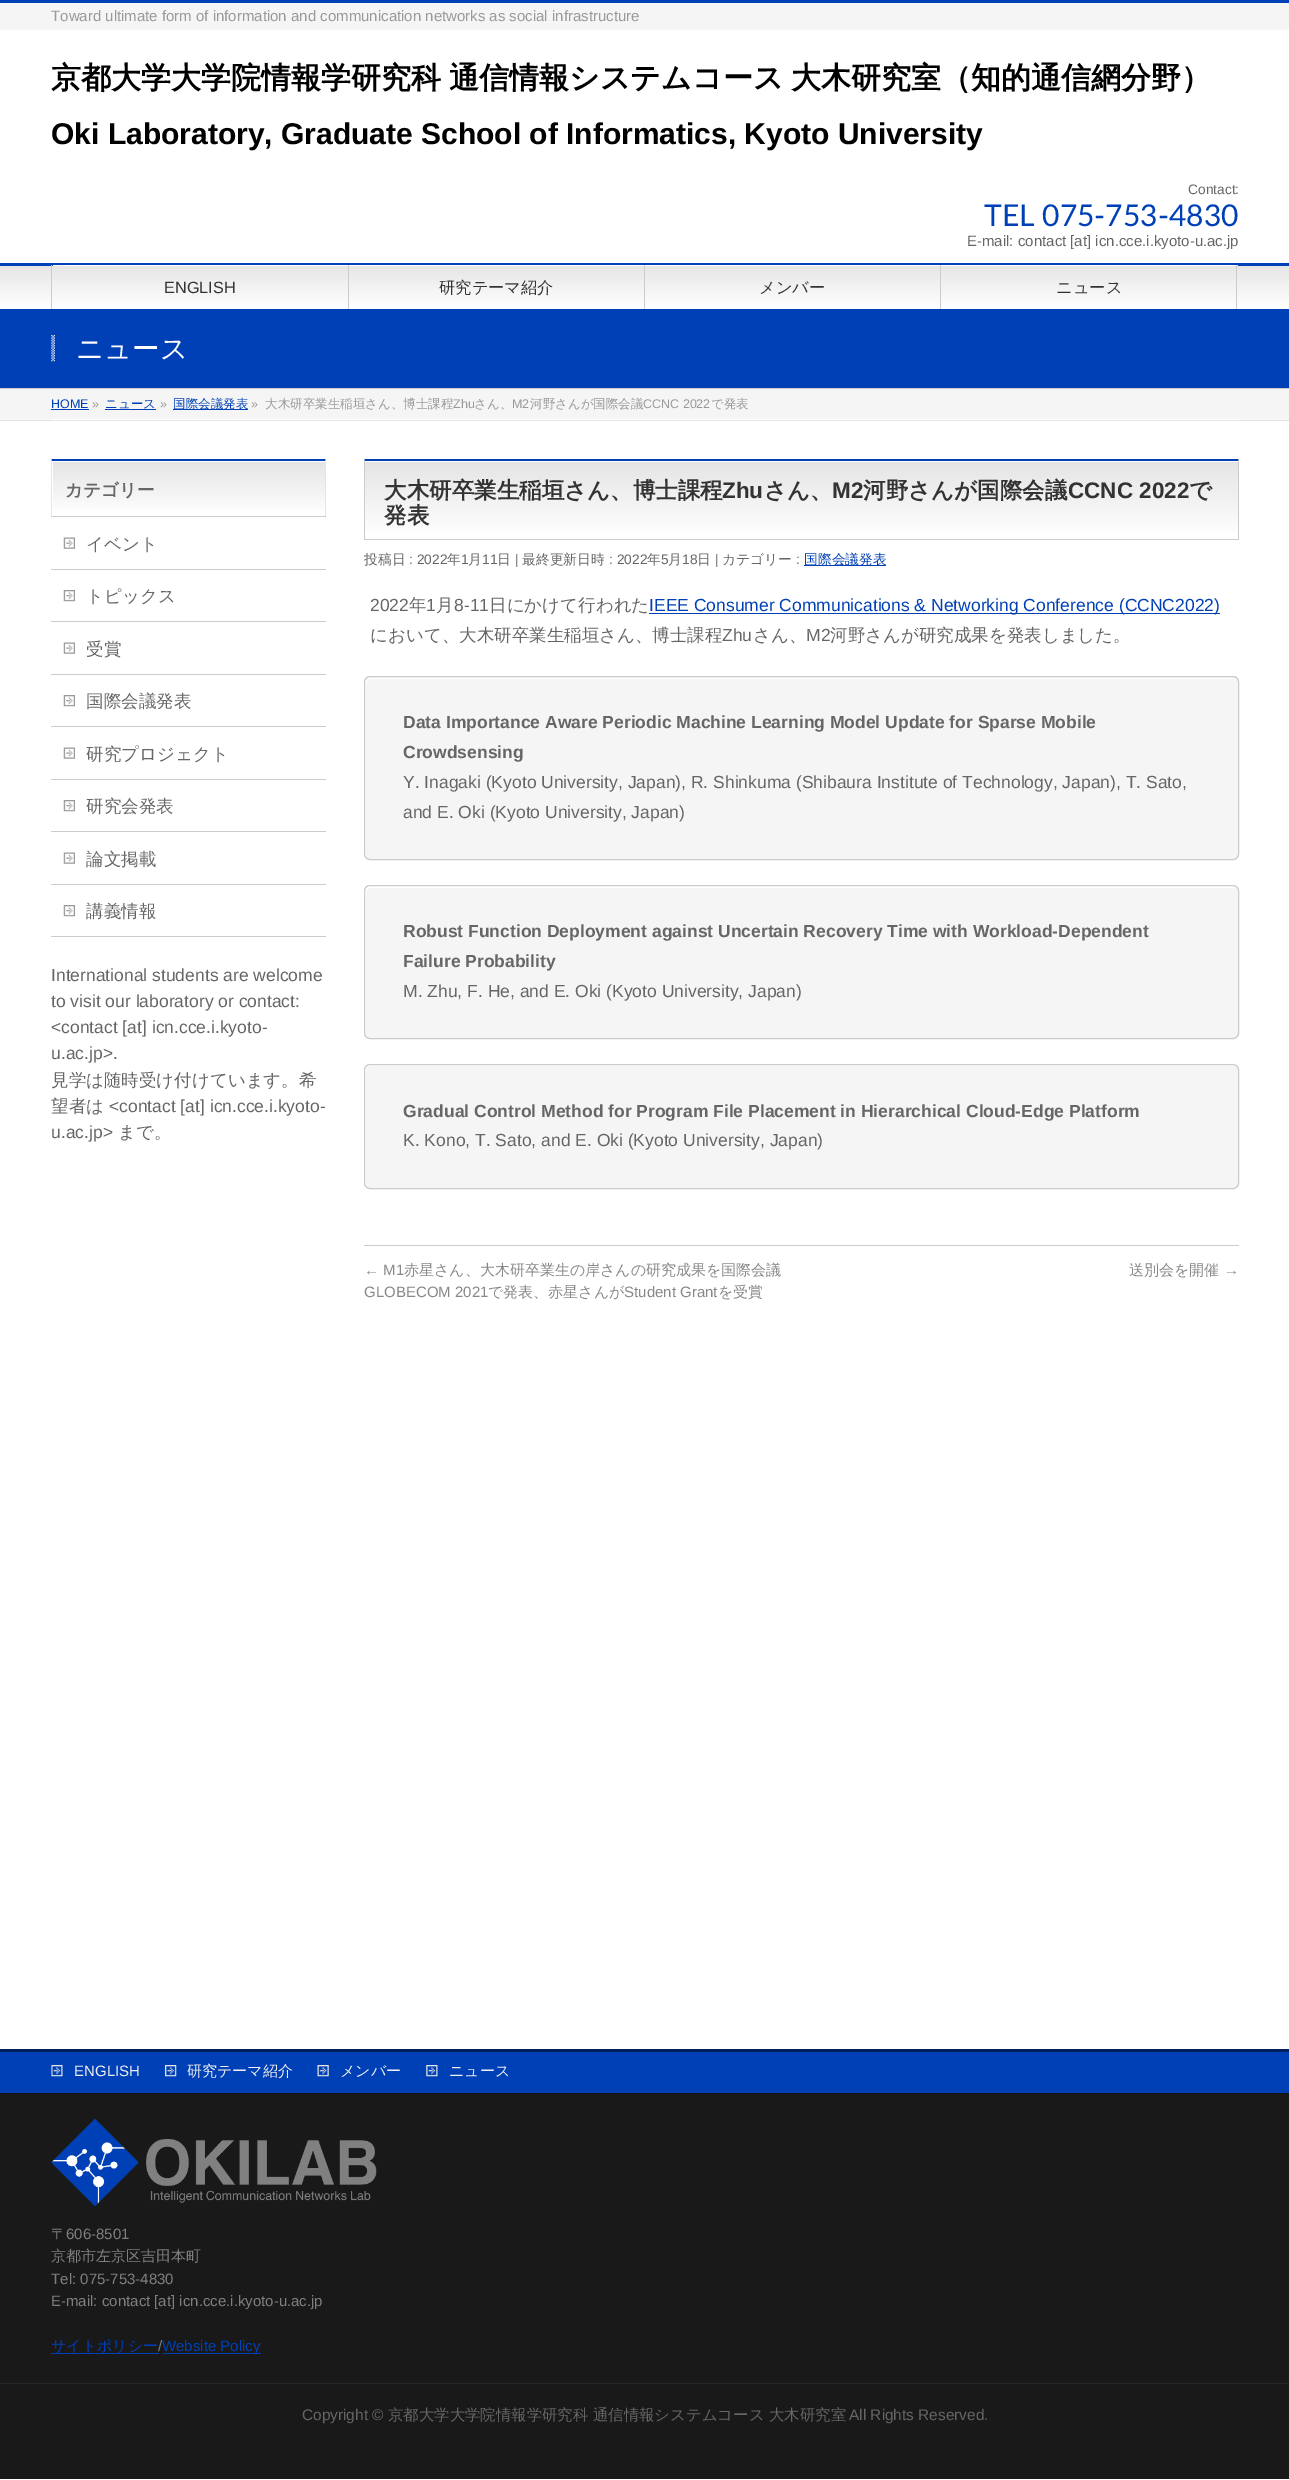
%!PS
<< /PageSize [1289 2480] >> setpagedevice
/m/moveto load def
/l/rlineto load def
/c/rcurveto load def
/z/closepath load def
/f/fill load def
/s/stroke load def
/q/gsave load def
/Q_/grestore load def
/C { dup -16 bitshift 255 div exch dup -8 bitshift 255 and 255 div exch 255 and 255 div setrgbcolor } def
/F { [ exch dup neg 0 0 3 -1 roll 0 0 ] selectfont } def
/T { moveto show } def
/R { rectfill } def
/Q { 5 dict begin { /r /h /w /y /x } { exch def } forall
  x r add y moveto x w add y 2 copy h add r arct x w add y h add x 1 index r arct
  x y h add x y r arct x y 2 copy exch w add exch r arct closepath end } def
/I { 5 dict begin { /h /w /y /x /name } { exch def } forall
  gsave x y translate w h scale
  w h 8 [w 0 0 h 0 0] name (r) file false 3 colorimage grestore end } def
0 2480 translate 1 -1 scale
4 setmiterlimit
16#FFFFFF C
0 0 1289 2480 R
16#F5F5F5 C
0 3 1289 27 R
16#0040B6 C
0 0 1289 3 R
/LiberationSans-Regular 15 F
16#999999 C
(Toward ultimate form of information and communication networks as social infrastructure) 51 21 T
/WenQuanYiZenHei-Bold 30 F
16#000000 C
51 88 m -1 0 32 (京都大学大学院情報学研究科 通信情報システムコース 大木研究室（知的通信網分野）) widthshow
/LiberationSans-Bold 30 F
(Oki Laboratory, Graduate School of Informatics, Kyoto University) 51 144 T
/LiberationSans-Regular 13.75 F
16#666666 C
(Contact:) 1188 194 T
/Lato-Regular 30 F
16#0040B6 C
(TEL 075-753-4830) 984 226 T
/LiberationSans-Regular 15 F
16#666666 C
(E-mail: contact [at] icn.cce.i.kyoto-u.ac.jp) 967 246 T
q 0 266 m 1289 0 l 0 39 l -1289 0 l z clip newpath
<< /ShadingType 2 /ColorSpace /DeviceRGB /Coords [0 265 0 309] /Extend [true true] /Function << /FunctionType 2 /Domain [0 1] /C0 [.898 .898 .898] /C1 [1 1 1] /N 1 >> >> shfill Q_
16#0040B6 C
0 263 1289 3 R
16#CCCCCC C
51 265 1 44 R
16#FFFFFF C
53 265 295 1 R
16#CCCCCC C
348 265 1 44 R
/LiberationSans-Regular 16.25 F
16#333333 C
(ENGLISH) 164 293 T
16#FFFFFF C
349 265 295 1 R
16#CCCCCC C
644 265 1 44 R
/WenQuanYiZenHei-Medium 16.25 F
16#333333 C
(研究テーマ紹介) 439 293 T
16#FFFFFF C
645 265 295 1 R
16#CCCCCC C
940 265 1 44 R
16#333333 C
(メンバー) 759 293 T
q 941 265 m 297 0 l 0 1 l -297 0 l z clip newpath
<< /ShadingType 2 /ColorSpace /DeviceRGB /Coords [941 265 941 309] /Extend [true true] /Function << /FunctionType 2 /Domain [0 1] /C0 [.898 .898 .898] /C1 [1 1 1] /N 1 >> >> shfill Q_
16#FFFFFF C
941 265 295 1 R
16#CCCCCC C
1236 265 1 44 R
16#333333 C
(ニュース) 1056 293 T
16#0040B6 C
0 309 1289 79 R
16#CCCCCC C
0 388 1289 1 R
(1.rgb) 51 335 4 27 I
/WenQuanYiZenHei-Medium 27.5 F
16#FFFFFF C
(ニュース) 76 358 T
16#F5F5F5 C
0 389 1289 31 R
16#E5E5E5 C
0 420 1289 1 R
16#FFFFFF C
51 419 1188 1 R
/LiberationSans-Regular 12.5 F
16#0040B6 C
(HOME) 51 408 T
51 409 38 1 R
16#999999 C
(») 92 408 T
/WenQuanYiZenHei-Medium 12.5 F
16#0040B6 C
(ニュース) 105 408 T
105 409 51 1 R
/LiberationSans-Regular 12.5 F
16#999999 C
(») 160 408 T
16#0040B6 C
173 409 75 1 R
/WenQuanYiZenHei-Medium 12.5 F
(国際会議発表) 173 408 T
/LiberationSans-Regular 12.5 F
16#999999 C
(») 251 408 T
/WenQuanYiZenHei-Medium 12.5 F
(大木研卒業生稲垣さん、博士課程) 265 408 T
/LiberationSans-Regular 12.5 F
(Zhu) 453 408 T
/WenQuanYiZenHei-Medium 12.5 F
(さん、) 474 408 T
/LiberationSans-Regular 12.5 F
(M2) 512 408 T
/WenQuanYiZenHei-Medium 12.5 F
(河野さんが国際会議) 530 408 T
/LiberationSans-Regular 12.5 F
(CCNC 2022) 643 408 T
/WenQuanYiZenHei-Medium 12.5 F
(で発表) 711 408 T
q 53 462 m 272 0 l 0 49 l -272 0 l z clip newpath
<< /ShadingType 2 /ColorSpace /DeviceRGB /Coords [53 461 53 516] /Extend [true true] /Function << /FunctionType 2 /Domain [0 1] /C0 [.898 .898 .898] /C1 [1 1 1] /N 1 >> >> shfill Q_
16#0040B6 C
51 459 m 275 0 l -1 2 l -273 0 l z f
16#E5E5E5 C
326 459 m 0 59 l -1 -2 l 0 -55 l z f
16#CCCCCC C
51 516 275 1 R
16#E5E5E5 C
51 518 m 0 -59 l 1 2 l 0 55 l z f
/WenQuanYiZenHei-Bold 17.5 F
16#666666 C
(カテゴリー) 65 496 T
16#CCCCCC C
51 569 275 1 R
(2.rgb) 63 537 12 12 I
/WenQuanYiZenHei-Medium 17.5 F
16#666666 C
(イベント) 86 550 T
16#CCCCCC C
51 621 275 1 R
(3.rgb) 63 590 12 12 I
16#666666 C
(トピックス) 86 602 T
16#CCCCCC C
51 674 275 1 R
(2.rgb) 63 642 12 12 I
16#666666 C
(受賞) 86 655 T
16#CCCCCC C
51 726 275 1 R
(3.rgb) 63 695 12 12 I
16#666666 C
(国際会議発表) 86 707 T
16#CCCCCC C
51 779 275 1 R
(2.rgb) 63 747 12 12 I
16#666666 C
(研究プロジェクト) 86 760 T
16#CCCCCC C
51 831 275 1 R
(3.rgb) 63 800 12 12 I
16#666666 C
(研究会発表) 86 812 T
16#CCCCCC C
51 884 275 1 R
(2.rgb) 63 852 12 12 I
16#666666 C
(論文掲載) 86 865 T
16#CCCCCC C
51 936 275 1 R
(3.rgb) 63 905 12 12 I
16#666666 C
(講義情報) 86 917 T
/LiberationSans-Regular 17.5 F
(International students are welcome) 51 981 T
(to visit our laboratory or contact:) 51 1007 T
(<contact [at] icn.cce.i.kyoto-) 51 1033 T
(u.ac.jp>.) 51 1059 T
/WenQuanYiZenHei-Medium 17.5 F
(見学は随時受け付けています。希) 51 1086 T
(望者は) 51 1112 T
/LiberationSans-Regular 17.5 F
(<contact [at] icn.cce.i.kyoto-) 109 1112 T
(u.ac.jp>) 51 1138 T
/WenQuanYiZenHei-Medium 17.5 F
(まで。) 118 1138 T
q 365 462 m 873 0 l 0 70 l -873 0 l z clip newpath
<< /ShadingType 2 /ColorSpace /DeviceRGB /Coords [365 461 365 539] /Extend [true true] /Function << /FunctionType 2 /Domain [0 1] /C0 [.898 .898 .898] /C1 [1 1 1] /N 1 >> >> shfill Q_
16#0040B6 C
364 459 m 875 0 l -1 2 l -873 0 l z f
16#CCCCCC C
1239 459 m 0 81 l -1 -1 l 0 -78 l z f
364 539 875 1 R
364 540 m 0 -81 l 1 2 l 0 78 l z f
/WenQuanYiZenHei-Bold 22.5 F
16#333333 C
(大木研卒業生稲垣さん、博士課程) 384 498 T
/LiberationSans-Bold 22.5 F
(Zhu) 722 498 T
/WenQuanYiZenHei-Bold 22.5 F
(さん、) 764 498 T
/LiberationSans-Bold 22.5 F
(M2) 832 498 T
/WenQuanYiZenHei-Bold 22.5 F
(河野さんが国際会議) 863 498 T
/LiberationSans-Bold 22.5 F
(CCNC 2022) 1068 498 T
/WenQuanYiZenHei-Bold 22.5 F
(で) 1189 498 T
(発表) 384 523 T
/WenQuanYiZenHei-Medium 13.75 F
16#666666 C
(投稿日) 364 564 T
/LiberationSans-Regular 13.75 F
(: 2022) 409 564 T
/WenQuanYiZenHei-Medium 13.75 F
(年) 447 564 T
/LiberationSans-Regular 13.75 F
(1) 461 564 T
/WenQuanYiZenHei-Medium 13.75 F
(月) 468 564 T
/LiberationSans-Regular 13.75 F
(11) 482 564 T
/WenQuanYiZenHei-Medium 13.75 F
(日) 497 564 T
/LiberationSans-Regular 13.75 F
(|) 515 564 T
/WenQuanYiZenHei-Medium 13.75 F
(最終更新日時) 522 564 T
/LiberationSans-Regular 13.75 F
(: 2022) 609 564 T
/WenQuanYiZenHei-Medium 13.75 F
(年) 647 564 T
/LiberationSans-Regular 13.75 F
(5) 661 564 T
/WenQuanYiZenHei-Medium 13.75 F
(月) 668 564 T
/LiberationSans-Regular 13.75 F
(18) 682 564 T
/WenQuanYiZenHei-Medium 13.75 F
(日) 697 564 T
/LiberationSans-Regular 13.75 F
(|) 715 564 T
/WenQuanYiZenHei-Medium 13.75 F
(カテゴリー) 722 564 T
/LiberationSans-Regular 13.75 F
(:) 796 564 T
16#0040B6 C
804 565 82 1 R
/WenQuanYiZenHei-Medium 13.75 F
(国際会議発表) 804 564 T
/LiberationSans-Regular 17.5 F
16#666666 C
(2022) 370 611 T
/WenQuanYiZenHei-Medium 17.5 F
(年) 409 611 T
/LiberationSans-Regular 17.5 F
(1) 426 611 T
/WenQuanYiZenHei-Medium 17.5 F
(月) 436 611 T
/LiberationSans-Regular 17.5 F
(8-11) 454 611 T
/WenQuanYiZenHei-Medium 17.5 F
(日にかけて行われた) 489 611 T
16#0040B6 C
649 613 571 1 R
/LiberationSans-Regular 17.5 F
(IEEE Consumer Communications & Networking Conference \(CCNC2022\)) 649 611 T
/WenQuanYiZenHei-Medium 17.5 F
16#666666 C
(において、大木研卒業生稲垣さん、博士課程) 370 641 T
/LiberationSans-Regular 17.5 F
(Zhu) 722 641 T
/WenQuanYiZenHei-Medium 17.5 F
(さん、) 753 641 T
/LiberationSans-Regular 17.5 F
(M2) 806 641 T
/WenQuanYiZenHei-Medium 17.5 F
(河野さんが研究成果を発表しました。) 830 641 T
16#F5F5F5 C
364 676 875 184 6 Q f
16#FFFFFF C
371 679 m 863 0 l 3 1 l -1 -1 -3 -2 -4 -2 c -863 0 l -3 0 -5 2 -5 5 c 0 171 l 0 1 1 3 2 4 c -1 -3 l 0 -171 l 0 -3 2 -5 5 -5 c z f
16#CCCCCC C
364.5 676.5 874 183 5.5 Q s
/LiberationSans-Bold 17.5 F
16#666666 C
(Data Importance Aware Periodic Machine Learning Model Update for Sparse Mobile) 403 728 T
(Crowdsensing) 403 758 T
/LiberationSans-Regular 17.5 F
(Y. Inagaki \(Kyoto University, Japan\), R. Shinkuma \(Shibaura Institute of Technology, Japan\), T. Sato,) 403 788 T
(and E. Oki \(Kyoto University, Japan\)) 403 818 T
16#F5F5F5 C
364 885 875 154 6 Q f
16#FFFFFF C
371 888 m 863 0 l 2 0 3 1 4 1 c -1 -2 -3 -3 -5 -3 c -863 0 l -3 0 -5 2 -5 5 c 0 142 l 0 1 1 3 2 4 c -1 -3 l 0 -142 l 0 -2 2 -4 5 -4 c z f
16#CCCCCC C
364.5 885.5 874 153 5.5 Q s
/LiberationSans-Bold 17.5 F
16#666666 C
(Robust Function Deployment against Uncertain Recovery Time with Workload-Dependent) 403 937 T
(Failure Probability) 403 967 T
/LiberationSans-Regular 17.5 F
(M. Zhu, F. He, and E. Oki \(Kyoto University, Japan\)) 403 997 T
16#F5F5F5 C
364 1064 875 125 6 Q f
16#FFFFFF C
371 1066 m 863 0 l 3 1 l -1 -1 -3 -2 -4 -2 c -863 0 l -3 0 -5 2 -5 5 c 0 113 l 0 1 1 3 2 4 c -1 -3 l 0 -113 l 0 -3 2 -5 5 -5 c z f
16#CCCCCC C
364.5 1064.5 874 124 5.5 Q s
/LiberationSans-Bold 17.5 F
16#666666 C
(Gradual Control Method for Program File Placement in Hierarchical Cloud-Edge Platform) 403 1117 T
/LiberationSans-Regular 17.5 F
(K. Kono, T. Sato, and E. Oki \(Kyoto University, Japan\)) 403 1146 T
16#CCCCCC C
364 1245 875 1 R
/LiberationSans-Regular 15 F
16#888888 C
(← M1) 364 1275 T
/WenQuanYiZenHei-Medium 15 F
(赤星さん、大木研卒業生の岸さんの研究成果を国際会議) 404 1275 T
/LiberationSans-Regular 15 F
(GLOBECOM 2021) 364 1297 T
/WenQuanYiZenHei-Medium 15 F
(で発表、赤星さんが) 488 1297 T
/LiberationSans-Regular 15 F
(Student Grant) 624 1297 T
/WenQuanYiZenHei-Medium 15 F
(を受賞) 718 1297 T
(送別会を開催) 1129 1275 T
/LiberationSans-Regular 15 F
(→) 1224 1275 T
16#0040B6 C
0 2052 1289 41 R
16#00205B C
0 2049 1289 3 R
(4.rgb) 51 2065 12 12 I
16#EFEFEF C
(ENGLISH) 74 2076 T
(5.rgb) 165 2065 12 12 I
/WenQuanYiZenHei-Medium 15 F
(研究テーマ紹介) 187 2076 T
(6.rgb) 317 2065 12 12 I
(メンバー) 340 2076 T
(7.rgb) 426 2065 12 12 I
(ニュース) 449 2076 T
16#191919 C
0 2094 1289 289 R
16#151515 C
0 2093 1289 1 R
(8.rgb) 51 2118 326 89 I
16#808080 C
(〒) 51 2239 T
/LiberationSans-Regular 15 F
(606-8501) 66 2239 T
/WenQuanYiZenHei-Medium 15 F
(京都市左京区吉田本町) 51 2261 T
/LiberationSans-Regular 15 F
(Tel: 075-753-4830) 51 2284 T
(E-mail: contact [at] icn.cce.i.kyoto-u.ac.jp) 51 2306 T
16#0040B6 C
51 2353 108 1 R
/WenQuanYiZenHei-Medium 15 F
(サイトポリシー) 51 2351 T
/LiberationSans-Regular 15 F
16#808080 C
(/) 158 2351 T
16#0040B6 C
163 2353 98 1 R
(Website Policy) 162 2351 T
16#191919 C
0 2384 1289 95 R
16#262626 C
0 2383 1289 1 R
/LiberationSans-Regular 15.4 F
16#666666 C
(Copyright ©) 302 2420 T
/WenQuanYiZenHei-Medium 15.4 F
(京都大学大学院情報学研究科 通信情報システムコース 大木研究室) 388 2420 T
/LiberationSans-Regular 15.4 F
(All Rights Reserved.) 849 2420 T
showpage
